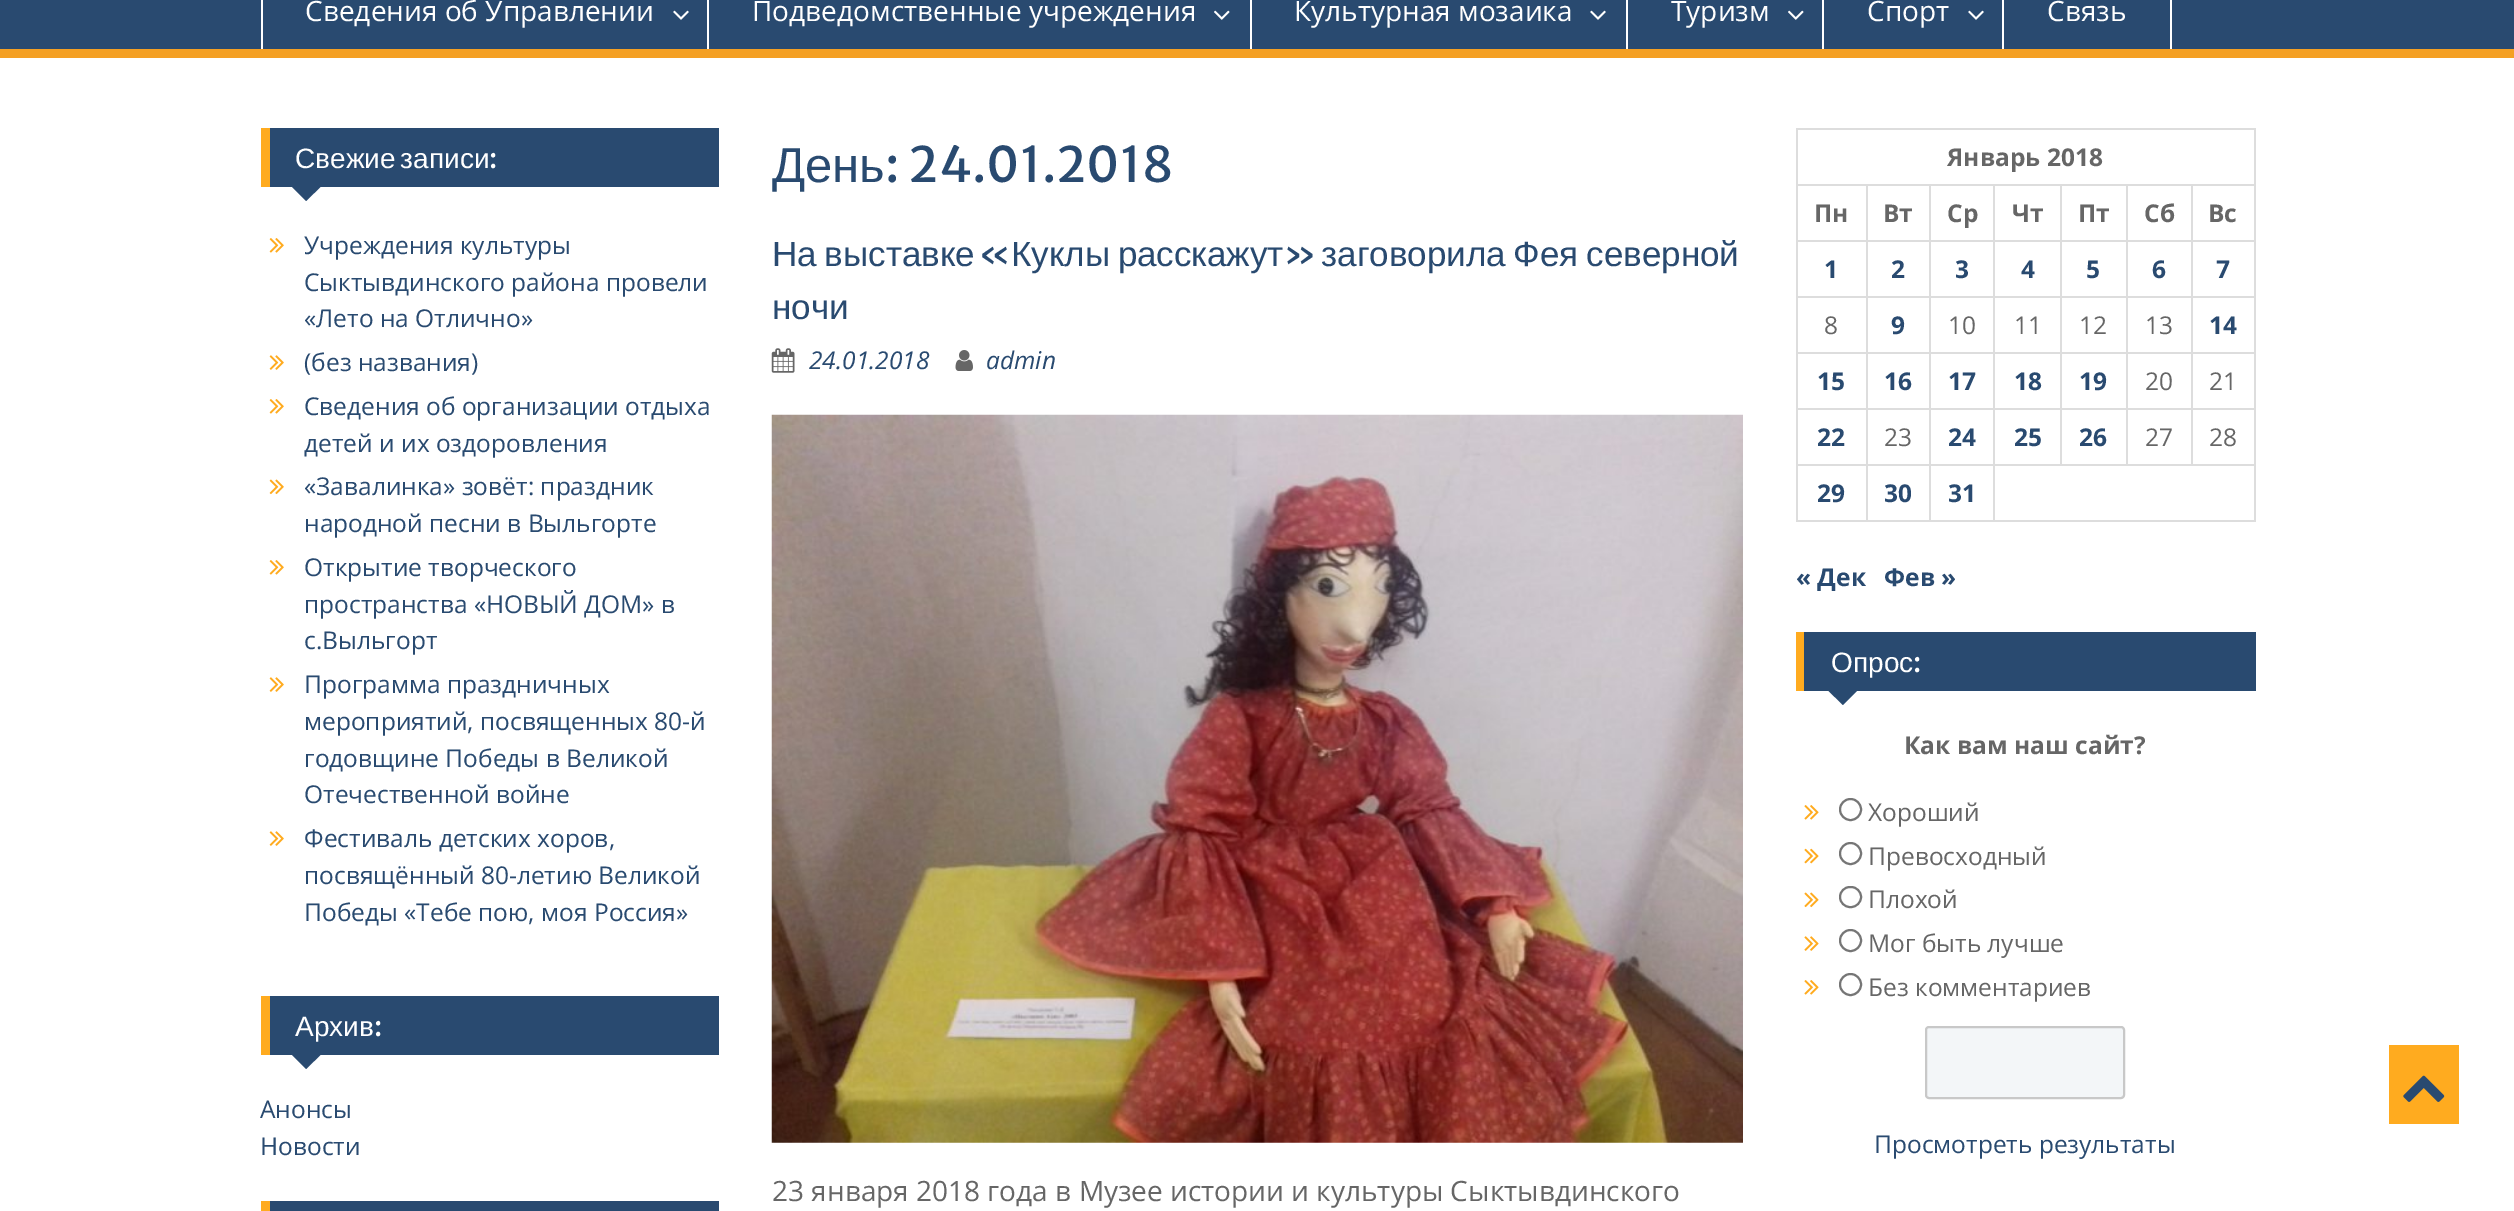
%!PS
<< /PageSize [2514 1211] >> setpagedevice
/m/moveto load def
/l/rlineto load def
/z/closepath load def
/f/fill load def
/s/stroke load def
/q/gsave load def
/Q_/grestore load def
/w/setlinewidth load def
/C { dup -16 bitshift 255 div exch dup -8 bitshift 255 and 255 div exch 255 and 255 div setrgbcolor } def
/F { [ exch dup neg 0 0 3 -1 roll 0 0 ] selectfont } def
/T { moveto show } def
/R { rectfill } def
/O { newpath 0 360 arc closepath } def
/Q { 5 dict begin { /r /h /w /y /x } { exch def } forall
  x r add y moveto x w add y 2 copy h add r arct x w add y h add x 1 index r arct
  x y h add x y r arct x y 2 copy exch w add exch r arct closepath end } def
/I { 5 dict begin { /h /w /y /x /name } { exch def } forall
  gsave x y translate w h scale
  w h 8 [w 0 0 h 0 0] name (r) file false 3 colorimage grestore end } def
0 1211 translate 1 -1 scale
4 setmiterlimit
16#FFFFFF C
0 0 2514 1211 R
16#294A70 C
0 0 2514 49 R
16#F4A024 C
0 49 2514 9 R
16#FFFFFF C
707 0 2 49 R
261 0 2 49 R
/OpenSans-Regular 28 F
(Сведения об Управлении) 305 21 T
(1.rgb) 673 10 16 10 I
1250 0 2 49 R
(Подведомственные учреждения) 752 21 T
(2.rgb) 1214 10 16 10 I
1626 0 2 49 R
(Культурная мозаика) 1294 21 T
(1.rgb) 1590 10 16 10 I
1822 0 2 49 R
(Туризм) 1671 21 T
(2.rgb) 1788 10 16 10 I
2002 0 2 49 R
(Спорт) 1867 21 T
(1.rgb) 1968 10 16 10 I
2170 0 2 49 R
(Связь) 2047 21 T
16#294A70 C
270 128 449 59 R
16#FFAB1F C
261 128 9 59 R
/LiberationSans-Regular 28 F
16#FFFFFF C
295 168 m -3 0 32 (Свежие записи) widthshow
/MerriweatherSans-Regular 28 F
(:) 489 168 T
16#294A70 C
290.5 185.5 m 31.5 0 l -16 15.5 l z f
(3.rgb) 269 238 15 15 I
/OpenSans-Regular 24.5 F
(Учреждения культуры) 304 254 T
(Сыктывдинского района провели) 304 291 T
(«Лето на Отлично») 304 327 T
(4.rgb) 269 355 15 15 I
(\(без названия\)) 304 371 T
(3.rgb) 269 399 15 15 I
(Сведения об организации отдыха) 304 415 T
(детей и их оздоровления) 304 452 T
(5.rgb) 269 479 15 16 I
(«Завалинка» зовёт: праздник) 304 495 T
(народной песни в Выльгорте) 304 532 T
(3.rgb) 269 560 15 15 I
(Открытие творческого) 304 576 T
(пространства «НОВЫЙ ДОМ» в) 304 613 T
(с.Выльгорт) 304 649 T
(4.rgb) 269 677 15 15 I
(Программа праздничных) 304 693 T
(мероприятий, посвященных 80-й) 304 730 T
(годовщине Победы в Великой) 304 767 T
(Отечественной войне) 304 803 T
(4.rgb) 269 831 15 15 I
(Фестиваль детских хоров,) 304 847 T
(посвящённый 80-летию Великой) 304 884 T
(Победы «Тебе пою, моя Россия») 304 921 T
270 996 449 59 R
16#FFAB1F C
261 996 9 59 R
/LiberationSans-Regular 28 F
16#FFFFFF C
(Архив) 295 1036 T
/MerriweatherSans-Regular 28 F
(:) 374 1036 T
16#294A70 C
290.5 1053.5 m 31.5 0 l -16 15.5 l z f
/OpenSans-Regular 24.5 F
(Анонсы) 260 1118 T
(Новости) 260 1155 T
270 1201 449 10 R
16#FFAB1F C
261 1201 9 10 R
/LiberationSans-Regular 49 F
16#294A70 C
(День) 772 182 T
/MerriweatherSans-Regular 49 F
(: 24.01.2018) 885 182 T
/LiberationSans-Regular 35 F
772 266 m -2 0 32 (На выставке) widthshow
/MerriweatherSans-Regular 35 F
(«) 978 266 T
/LiberationSans-Regular 35 F
1011 266 m -2 0 32 (Куклы расскажут) widthshow
/MerriweatherSans-Regular 35 F
(») 1283 266 T
/LiberationSans-Regular 35 F
1321 266 m -2 0 32 (заговорила Фея северной) widthshow
(ночи) 772 319 T
(6.rgb) 771 348 24 25 I
/OpenSans-Italic 24.5 F
(24.01.2018) 809 369 T
(7.rgb) 955 350 18 21 I
(admin) 986 369 T
(8.rgb) 771 414 972 729 I
/OpenSans-Regular 28 F
16#666666 C
(23 января 2018 года в Музее истории и культуры Сыктывдинского) 772 1201 T
16#DDDDDD C
1796 128 460 2 R
2254 128 2 56 R
1796 128 2 56 R
/OpenSans-Bold 24.5 F
16#666666 C
(Январь 2018) 1947 166 T
16#DDDDDD C
2191 184 65 2 R
2191 240 65 2 R
2191 296 65 2 R
2191 352 65 2 R
2191 408 65 2 R
1993 464 263 2 R
2191 408 2 58 R
2126 408 67 2 R
2191 352 2 58 R
2126 352 67 2 R
2191 296 2 58 R
2126 296 67 2 R
2191 240 2 58 R
2126 240 67 2 R
2191 184 2 58 R
2126 184 67 2 R
2126 408 2 58 R
2060 408 68 2 R
2126 352 2 58 R
2060 352 68 2 R
2126 296 2 58 R
2060 296 68 2 R
2126 240 2 58 R
2060 240 68 2 R
2126 184 2 58 R
2060 184 68 2 R
2060 408 2 58 R
1993 408 69 2 R
2060 352 2 58 R
1993 352 69 2 R
2060 296 2 58 R
1993 296 69 2 R
2060 240 2 58 R
1993 240 69 2 R
2060 184 2 58 R
1993 184 69 2 R
2254 464 2 58 R
1993 520 263 2 R
1993 464 2 58 R
1929 464 66 2 R
1993 408 2 58 R
1929 408 66 2 R
1993 352 2 58 R
1929 352 66 2 R
1993 296 2 58 R
1929 296 66 2 R
1993 240 2 58 R
1929 240 66 2 R
1993 184 2 58 R
1929 184 66 2 R
1929 520 66 2 R
1929 464 2 58 R
1866 464 64 2 R
1929 408 2 58 R
1866 408 64 2 R
1929 352 2 58 R
1866 352 64 2 R
1929 296 2 58 R
1866 296 64 2 R
1929 240 2 58 R
1866 240 64 2 R
1929 184 2 58 R
1866 184 64 2 R
1866 520 64 2 R
1866 464 2 58 R
1796 464 71 2 R
1866 408 2 58 R
1796 408 71 2 R
1866 352 2 58 R
1796 352 71 2 R
1866 296 2 58 R
1796 296 71 2 R
1866 240 2 58 R
1796 240 71 2 R
1866 184 2 58 R
1796 184 71 2 R
1796 520 71 2 R
1796 464 2 58 R
1796 408 2 58 R
1796 352 2 58 R
1796 296 2 58 R
1796 240 2 58 R
1796 184 2 58 R
16#666666 C
(Пн) 1814 222 T
(Вт) 1883 222 T
(Ср) 1947 222 T
(Чт) 2012 222 T
(Пт) 2078 222 T
(Сб) 2144 222 T
16#DDDDDD C
2254 408 2 58 R
2254 352 2 58 R
2254 296 2 58 R
2254 240 2 58 R
2254 184 2 58 R
16#666666 C
(Вс) 2208 222 T
16#294A70 C
(1) 1824 278 T
(2) 1891 278 T
(3) 1955 278 T
(4) 2021 278 T
(5) 2086 278 T
(6) 2152 278 T
(7) 2216 278 T
/OpenSans-Regular 24.5 F
16#666666 C
(8) 1824 334 T
/OpenSans-Bold 24.5 F
16#294A70 C
(9) 1891 334 T
/OpenSans-Regular 24.5 F
16#666666 C
(10) 1948 334 T
(11) 2014 334 T
(12) 2079 334 T
(13) 2145 334 T
/OpenSans-Bold 24.5 F
16#294A70 C
(14) 2209 334 T
(15) 1817 390 T
(16) 1884 390 T
(17) 1948 390 T
(18) 2014 390 T
(19) 2079 390 T
/OpenSans-Regular 24.5 F
16#666666 C
(20) 2145 390 T
(21) 2209 390 T
/OpenSans-Bold 24.5 F
16#294A70 C
(22) 1817 446 T
/OpenSans-Regular 24.5 F
16#666666 C
(23) 1884 446 T
/OpenSans-Bold 24.5 F
16#294A70 C
(24) 1948 446 T
(25) 2014 446 T
(26) 2079 446 T
/OpenSans-Regular 24.5 F
16#666666 C
(27) 2145 446 T
(28) 2209 446 T
/OpenSans-Bold 24.5 F
16#294A70 C
(29) 1817 502 T
(30) 1884 502 T
(31) 1948 502 T
(« Дек) 1796 586 T
(Фев ») 1884 586 T
1804 632 452 59 R
16#FFAB1F C
1796 632 8 59 R
/LiberationSans-Regular 28 F
16#FFFFFF C
(Опрос) 1831 672 T
/MerriweatherSans-Regular 28 F
(:) 1913 672 T
16#294A70 C
1827 689.5 m 31.5 0 l -15.5 15.5 l z f
/OpenSans-Bold 24.5 F
16#666666 C
(Как вам наш сайт?) 1904 754 T
(9.rgb) 1804 805 15 15 I
16#767676 C
2 w
1850.5 809.5 10.5 O s
/OpenSans-Regular 24.5 F
16#666666 C
(Хороший) 1868 821 T
(10.rgb) 1804 848 15 16 I
16#767676 C
1850.5 853.5 10.5 O s
16#666666 C
(Превосходный) 1868 865 T
(11.rgb) 1804 892 15 16 I
16#767676 C
1840 887 21 20 10 Q s
16#666666 C
(Плохой) 1868 908 T
(12.rgb) 1804 936 15 15 I
16#767676 C
1850.5 940.5 10.5 O s
16#666666 C
(Мог быть лучше) 1868 952 T
(9.rgb) 1804 980 15 15 I
16#767676 C
1850.5 984.5 10.5 O s
16#666666 C
(Без комментариев) 1868 996 T
16#F3F6F8 C
1926 1027 198 71 3 Q q f Q_
16#C8C8C8 C
s
16#294A70 C
(Просмотреть результаты) 1874 1153 T
16#FFAB1F C
2389 1045 70 79 R
(13.rgb) 2403 1075 42 27 I
showpage
